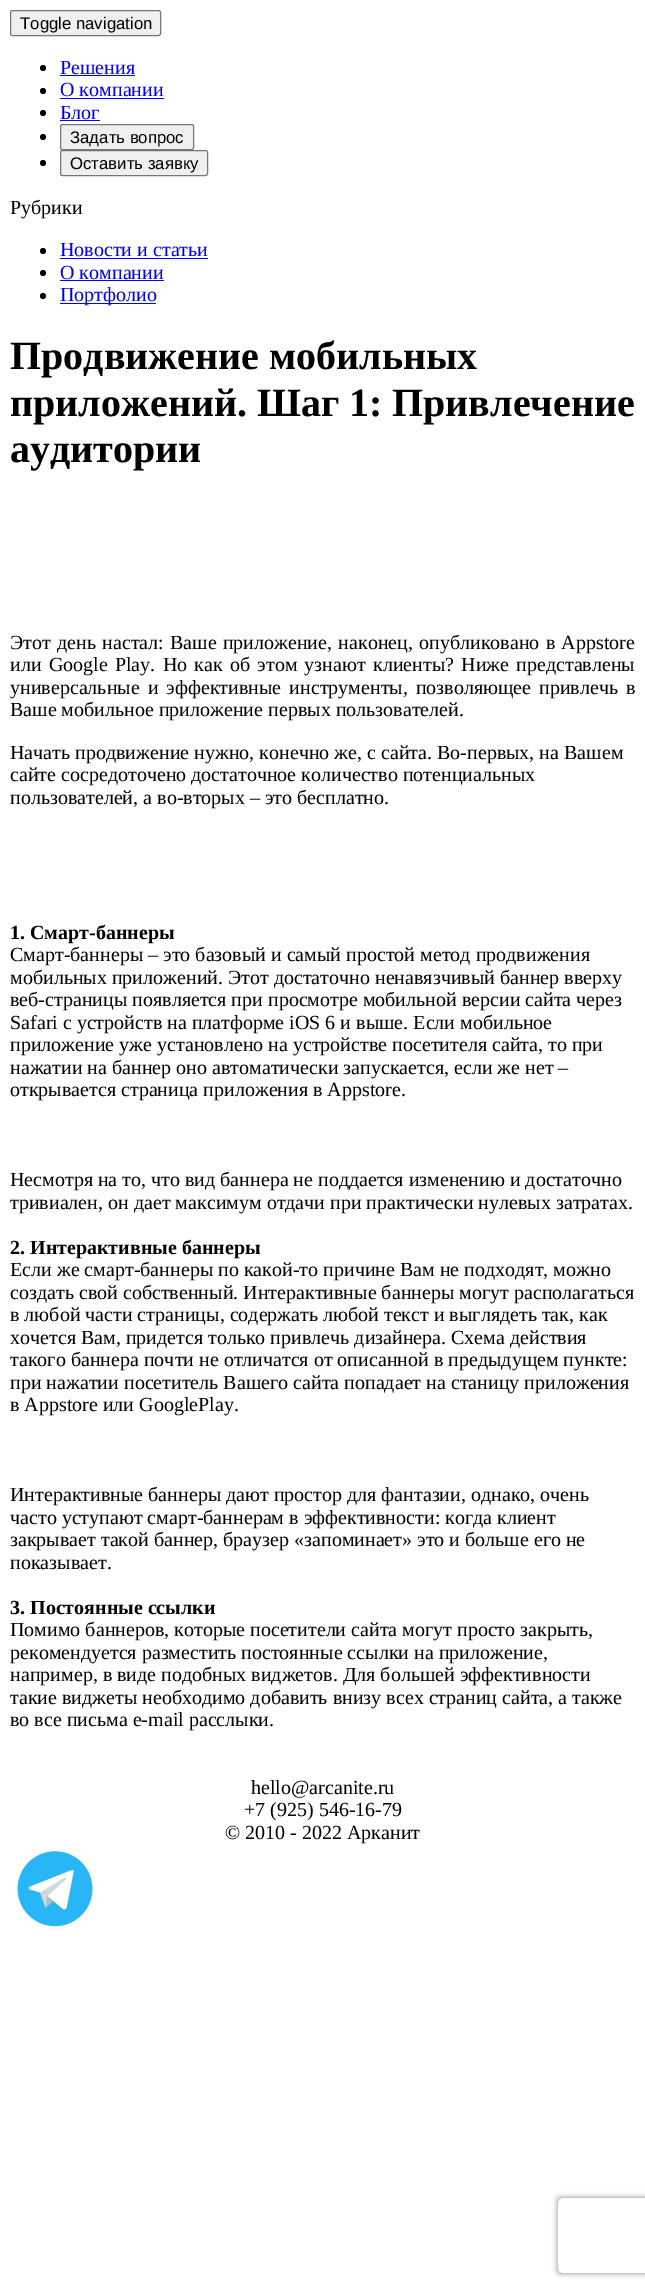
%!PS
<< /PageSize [645 2290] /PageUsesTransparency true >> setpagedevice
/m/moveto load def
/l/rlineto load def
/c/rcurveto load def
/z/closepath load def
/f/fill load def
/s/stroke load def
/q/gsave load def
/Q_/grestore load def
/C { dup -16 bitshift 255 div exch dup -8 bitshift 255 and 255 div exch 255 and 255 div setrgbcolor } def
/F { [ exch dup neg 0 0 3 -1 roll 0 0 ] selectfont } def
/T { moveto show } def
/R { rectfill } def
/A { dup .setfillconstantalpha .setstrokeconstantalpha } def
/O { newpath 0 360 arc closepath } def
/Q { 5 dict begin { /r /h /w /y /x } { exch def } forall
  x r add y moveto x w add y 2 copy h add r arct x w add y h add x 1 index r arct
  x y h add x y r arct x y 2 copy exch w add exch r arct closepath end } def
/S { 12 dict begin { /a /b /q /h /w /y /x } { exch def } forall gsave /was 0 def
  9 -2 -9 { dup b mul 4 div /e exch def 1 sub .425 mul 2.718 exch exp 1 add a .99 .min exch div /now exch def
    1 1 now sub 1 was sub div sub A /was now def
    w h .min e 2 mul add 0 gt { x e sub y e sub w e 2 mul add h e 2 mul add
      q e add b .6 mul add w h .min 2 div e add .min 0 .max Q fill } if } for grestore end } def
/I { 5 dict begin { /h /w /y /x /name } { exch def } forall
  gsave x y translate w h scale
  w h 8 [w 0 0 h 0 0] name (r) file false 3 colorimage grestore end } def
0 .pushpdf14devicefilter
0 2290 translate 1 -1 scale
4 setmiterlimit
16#FFFFFF C
0 0 645 2290 R
16#EFEFEF C
10.5 10.5 150 25 2 Q q f Q_
16#767676 C
s
/LiberationSans-Regular 16.75 F
16#000000 C
(Toggle navigation) 20 29 T
43 68 3 O f
/LiberationSerif-Regular 20 F
16#0000EE C
(Решения) 60 74 T
60 75 75 1 R
16#000000 C
43 91 3 O f
16#0000EE C
(О компании) 60 96 T
60 98 104 1 R
16#000000 C
43 113 3 O f
16#0000EE C
(Блог) 60 119 T
60 120 40 1 R
16#000000 C
43 137 3 O f
16#EFEFEF C
60.5 124.5 133 25 2 Q q f Q_
16#767676 C
s
/LiberationSans-Regular 16.75 F
16#000000 C
(Задать вопрос) 70 143 T
43 163 3 O f
16#EFEFEF C
60.5 150.5 147 25 2 Q q f Q_
16#767676 C
s
16#000000 C
(Оставить заявку) 70 169 T
/LiberationSerif-Regular 20 F
(Рубрики) 10 214 T
43 251 3 O f
16#0000EE C
(Новости и статьи) 60 256 T
60 258 148 1 R
16#000000 C
43 273 3 O f
16#0000EE C
(О компании) 60 279 T
60 280 104 1 R
16#000000 C
43 296 3 O f
16#0000EE C
60 303 96 1 R
(Портфолио) 60 301 T
/LiberationSerif-Bold 40 F
16#000000 C
(Продвижение мобильных) 10 369 T
(приложений. Шаг 1: Привлечение) 10 416 T
(аудитории) 10 462 T
/LiberationSerif-Regular 20 F
10 649 m 1.25 0 32 (Этот день настал: Ваше приложение, наконец, опубликовано в Appstore) widthshow
10 671 m 2.25 0 32 (или Google Play. Но как об этом узнают клиенты? Ниже представлены) widthshow
10 694 m 3 0 32 (универсальные и эффективные инструменты, позволяющее привлечь в) widthshow
(Ваше мобильное приложение первых пользователей.) 10 716 T
(Начать продвижение нужно, конечно же, с сайта. Во-первых, на Вашем) 10 759 T
(сайте сосредоточено достаточное количество потенциальных) 10 781 T
(пользователей, а во-вторых – это бесплатно.) 10 804 T
/LiberationSerif-Bold 20 F
(1. Смарт-баннеры) 10 939 T
/LiberationSerif-Regular 20 F
(Смарт-баннеры – это базовый и самый простой метод продвижения) 10 961 T
(мобильных приложений. Этот достаточно ненавязчивый баннер вверху) 10 984 T
(веб-страницы появляется при просмотре мобильной версии сайта через) 10 1006 T
(Safari с устройств на платформе iOS 6 и выше. Если мобильное) 10 1029 T
(приложение уже установлено на устройстве посетителя сайта, то при) 10 1051 T
(нажатии на баннер оно автоматически запускается, если же нет –) 10 1074 T
(открывается страница приложения в Appstore.) 10 1096 T
(Несмотря на то, что вид баннера не поддается изменению и достаточно) 10 1186 T
(тривиален, он дает максимум отдачи при практически нулевых затратах.) 10 1209 T
/LiberationSerif-Bold 20 F
(2. Интерактивные баннеры) 10 1254 T
/LiberationSerif-Regular 20 F
(Если же смарт-баннеры по какой-то причине Вам не подходят, можно) 10 1276 T
(создать свой собственный. Интерактивные баннеры могут располагаться) 10 1299 T
(в любой части страницы, содержать любой текст и выглядеть так, как) 10 1321 T
(хочется Вам, придется только привлечь дизайнера. Схема действия) 10 1344 T
(такого баннера почти не отличатся от описанной в предыдущем пункте:) 10 1366 T
(при нажатии посетитель Вашего сайта попадает на станицу приложения) 10 1389 T
(в Appstore или GooglePlay.) 10 1411 T
(Интерактивные баннеры дают простор для фантазии, однако, очень) 10 1501 T
(часто уступают смарт-баннерам в эффективности: когда клиент) 10 1524 T
(закрывает такой баннер, браузер «запоминает» это и больше его не) 10 1546 T
(показывает.) 10 1569 T
/LiberationSerif-Bold 20 F
(3. Постоянные ссылки) 10 1614 T
/LiberationSerif-Regular 20 F
(Помимо баннеров, которые посетители сайта могут просто закрыть,) 10 1636 T
(рекомендуется разместить постоянные ссылки на приложение,) 10 1659 T
(например, в виде подобных виджетов. Для большей эффективности) 10 1681 T
(такие виджеты необходимо добавить внизу всех страниц сайта, а также) 10 1704 T
(во все письма e-mail расслыки.) 10 1726 T
(hello@arcanite.ru) 251 1794 T
(+7 \(925\) 546-16-79) 244 1816 T
(© 2010 - 2022 Арканит) 225 1839 T
(1.rgb) 17 1851 76 76 I
q
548 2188 m 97 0 l 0 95 l -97 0 l z 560.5 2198 m 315 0 l 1.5 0 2.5 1 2.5 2.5 c 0 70 l 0 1.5 -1 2.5 -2.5 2.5 c -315 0 l -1.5 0 -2.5 -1 -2.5 -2.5 c 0 -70 l 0 -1.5 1 -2.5 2.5 -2.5 c z eoclip newpath
16#808080 C
558 2198 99 75 2.5 3 1 S
Q_
.poppdf14devicefilter showpage
